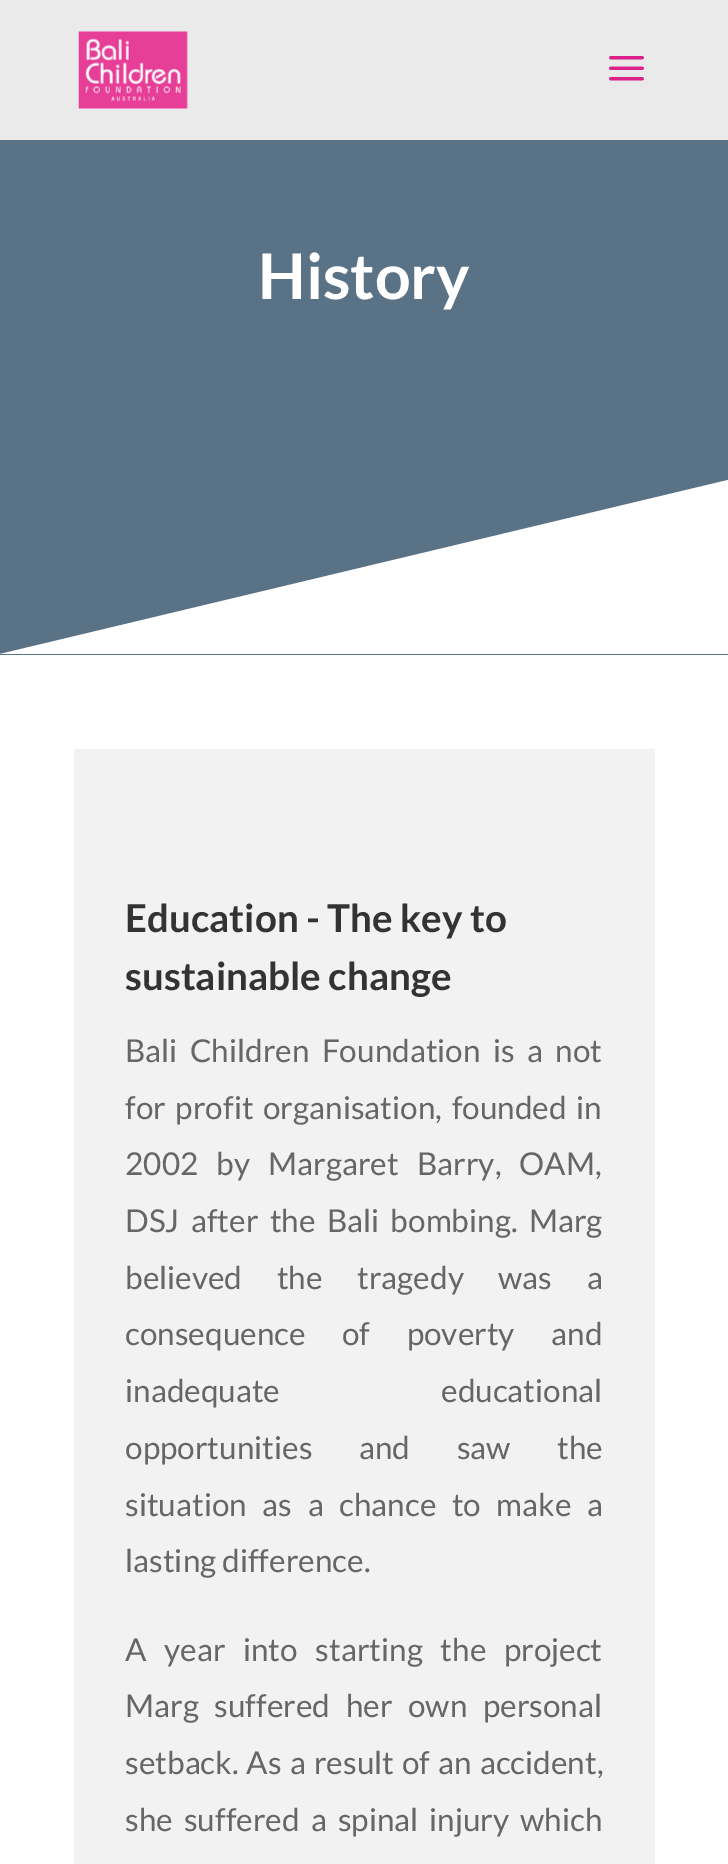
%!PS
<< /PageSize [728 1864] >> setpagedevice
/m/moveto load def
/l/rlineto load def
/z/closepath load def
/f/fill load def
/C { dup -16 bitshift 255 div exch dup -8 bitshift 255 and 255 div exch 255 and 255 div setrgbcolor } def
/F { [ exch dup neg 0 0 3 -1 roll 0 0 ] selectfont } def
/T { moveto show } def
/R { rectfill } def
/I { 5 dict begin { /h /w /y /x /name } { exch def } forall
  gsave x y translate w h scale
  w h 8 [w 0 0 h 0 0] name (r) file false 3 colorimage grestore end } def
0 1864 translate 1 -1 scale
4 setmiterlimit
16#FFFFFF C
0 0 728 1864 R
16#EAEAEA C
0 0 728 140 R
(1.rgb) 78 31 110 78 I
(2.rgb) 609 56 35 25 I
16#5A7286 C
0 140 728 515 R
/Lato-Bold 63 F
16#FFFFFF C
(History) 258 299 T
728 480 m 0 174 l -728 0 l z f
16#F2F2F2 C
74 749 581 1115 R
/Lato-Bold 38.5 F
16#333333 C
(Education - The key to) 125 932 T
(sustainable change) 125 990 T
/Lato-Regular 31.5 F
16#666666 C
125 1062 m 6.25 0 32 (Bali Children Foundation is a not) widthshow
125 1119 m 3.5 0 32 (for profit organisation, founded in) widthshow
125 1175 m 12 0 32 (2002 by Margaret Barry, OAM,) widthshow
125 1232 m 5.25 0 32 (DSJ after the Bali bombing. Marg) widthshow
125 1289 m 28.5 0 32 (believed the tragedy was a) widthshow
125 1345 m 30.5 0 32 (consequence of poverty and) widthshow
125 1402 m 155 0 32 (inadequate educational) widthshow
125 1459 m 40.5 0 32 (opportunities and saw the) widthshow
125 1516 m 9.5 0 32 (situation as a chance to make a) widthshow
(lasting difference.) 125 1572 T
125 1661 m 11.5 0 32 (A year into starting the project) widthshow
125 1717 m 9.5 0 32 (Marg suffered her own personal) widthshow
125 1774 m 2 0 32 (setback. As a result of an accident,) widthshow
125 1831 m 5 0 32 (she suffered a spinal injury which) widthshow
showpage
